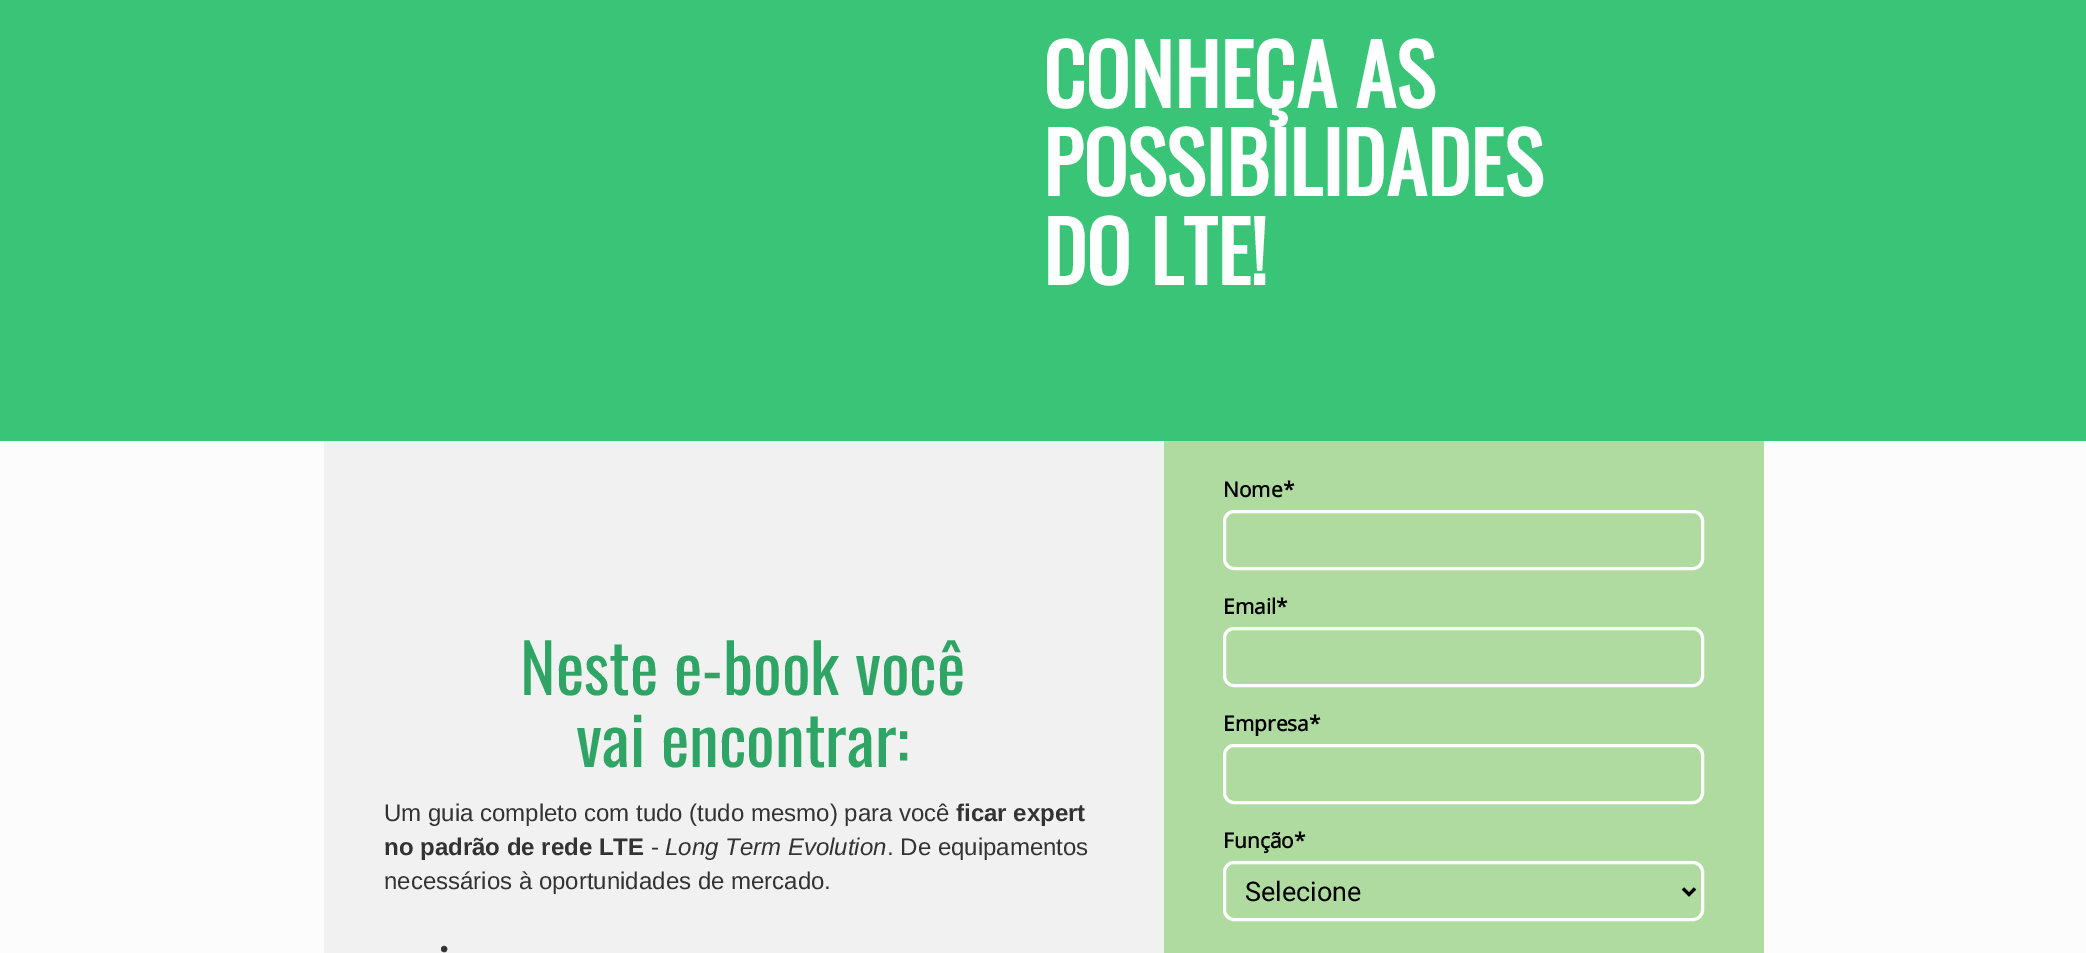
%!PS
<< /PageSize [2086 953] >> setpagedevice
/m/moveto load def
/l/rlineto load def
/f/fill load def
/s/stroke load def
/w/setlinewidth load def
/C { dup -16 bitshift 255 div exch dup -8 bitshift 255 and 255 div exch 255 and 255 div setrgbcolor } def
/F { [ exch dup neg 0 0 3 -1 roll 0 0 ] selectfont } def
/T { moveto show } def
/R { rectfill } def
/Q { 5 dict begin { /r /h /w /y /x } { exch def } forall
  x r add y moveto x w add y 2 copy h add r arct x w add y h add x 1 index r arct
  x y h add x y r arct x y 2 copy exch w add exch r arct closepath end } def
0 953 translate 1 -1 scale
4 setmiterlimit
16#39C478 C
0 0 2086 953 R
/Oswald-Bold 82.5 F
16#FFFFFF C
(CONHEÇA AS) 1043 108 T
(POSSIBILIDADES) 1043 196 T
(DO LTE!) 1043 285 T
16#FCFCFC C
0 441 2086 512 R
16#F1F1F1 C
324 441 840 512 R
/Oswald-Regular 67.5 F
16#2EA564 C
(Neste e-book você) 520 695 T
(vai encontrar:) 576 767 T
/LiberationSans-Regular 24 F
16#333333 C
(Um guia completo com tudo \(tudo mesmo\) para você) 384 821 T
/LiberationSans-Bold 24 F
(ficar expert) 956 821 T
(no padrão de rede LTE) 384 855 T
/LiberationSans-Regular 24 F
(-) 651 855 T
/LiberationSans-Italic 24 F
(Long Term Evolution) 665 855 T
/LiberationSans-Regular 24 F
(. De equipamentos) 887 855 T
(necessários à oportunidades de mercado.) 384 889 T
(•) 440 957 T
16#F0F0F0 C
1164 441 600 2 R
16#B0DBA0 C
1164 441 600 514 1.5 Q f
/OpenSans-Bold 21 F
16#000000 C
(Nome*) 1223 497 T
16#FFFFFF C
3 w
1224.5 511.5 478 57 9.5 Q s
16#000000 C
(Email*) 1223 614 T
16#FFFFFF C
1224.5 628.5 478 57 9.5 Q s
16#000000 C
(Empresa*) 1223 731 T
16#FFFFFF C
1224.5 745.5 478 57 9.5 Q s
16#000000 C
(Função*) 1223 848 T
16#FFFFFF C
1224.5 862.5 478 57 9.5 Q s
16#000000 C
1683 888.5 m 6 6 l 6 -6 l s
/Roboto-Regular 27 F
(Selecione) 1245 901 T
showpage
